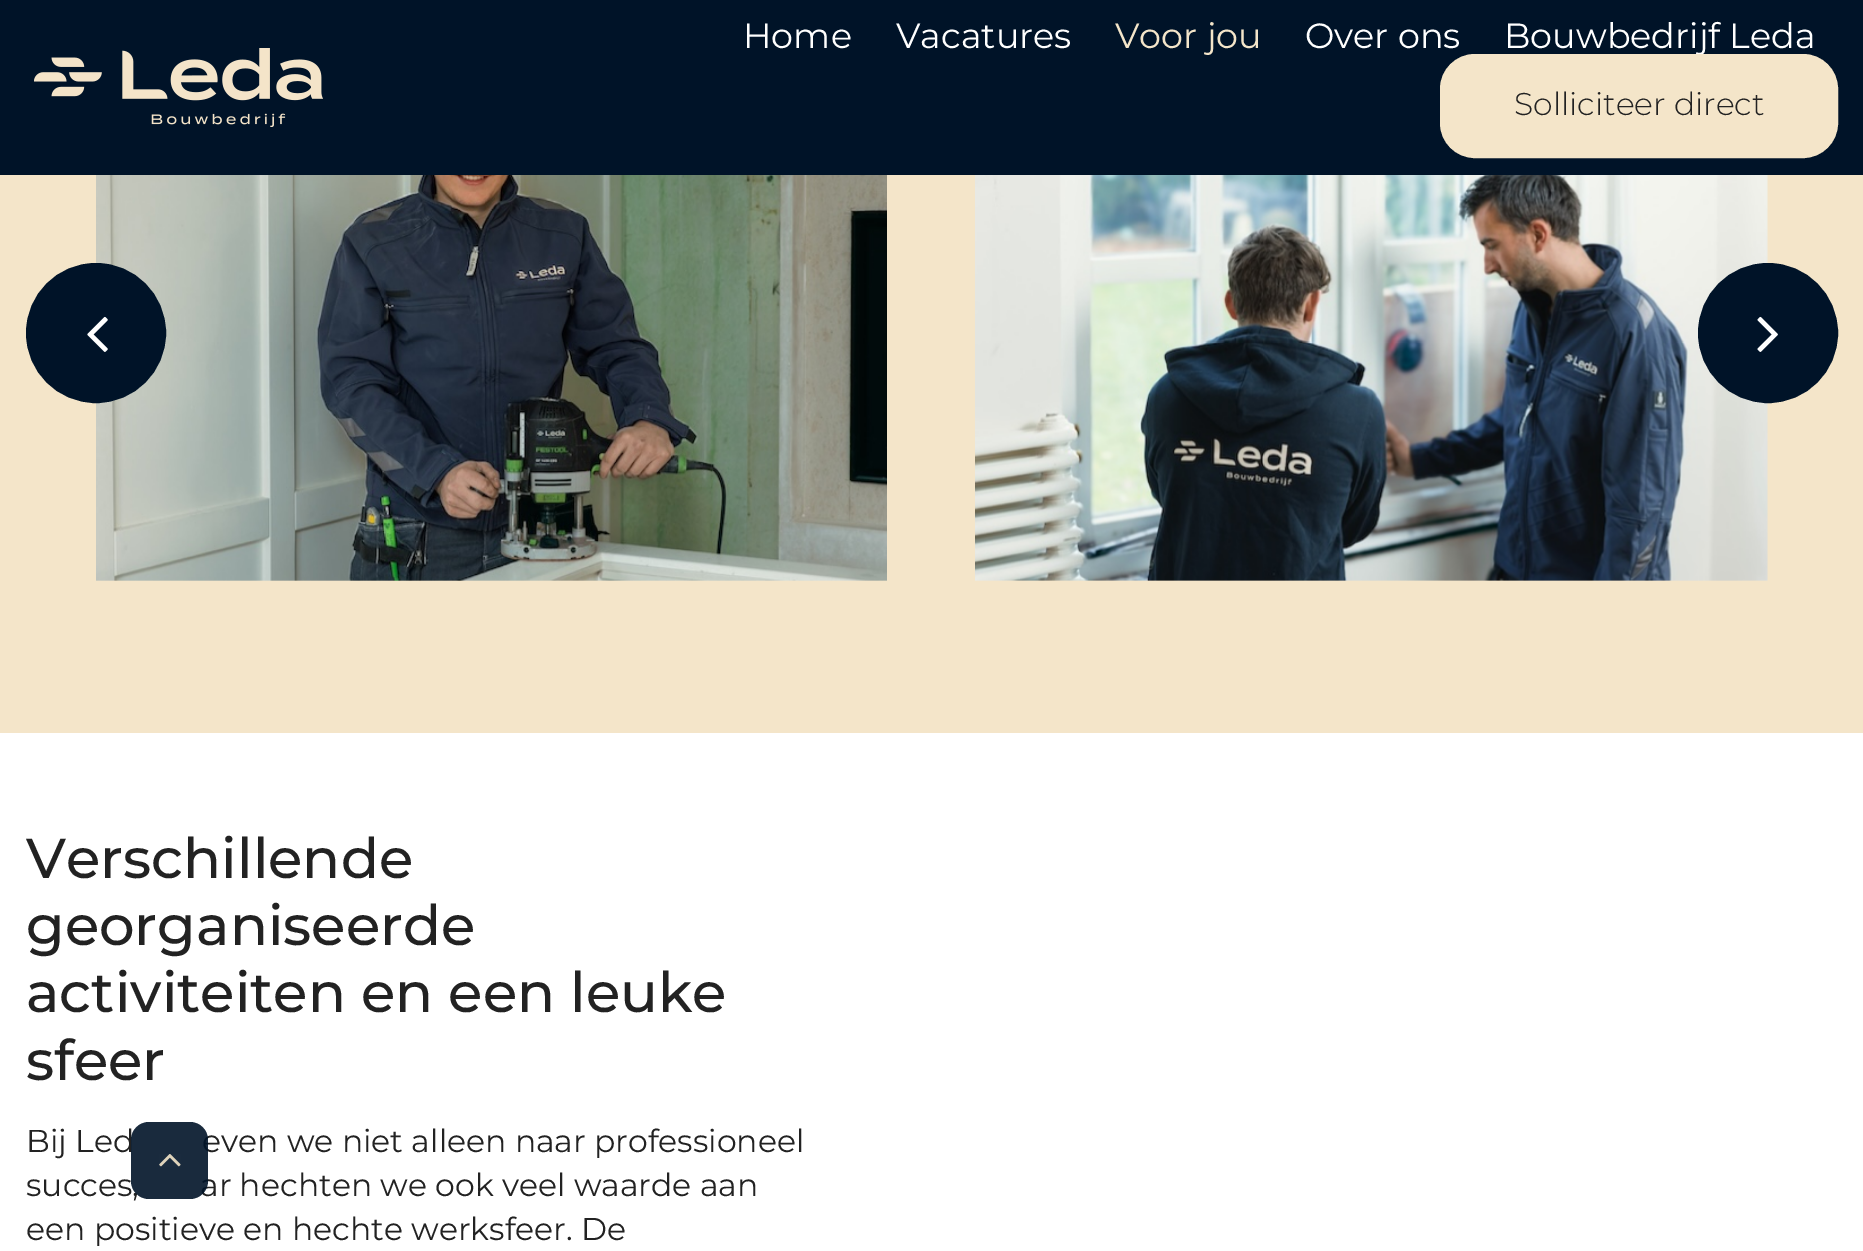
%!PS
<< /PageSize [1863 1251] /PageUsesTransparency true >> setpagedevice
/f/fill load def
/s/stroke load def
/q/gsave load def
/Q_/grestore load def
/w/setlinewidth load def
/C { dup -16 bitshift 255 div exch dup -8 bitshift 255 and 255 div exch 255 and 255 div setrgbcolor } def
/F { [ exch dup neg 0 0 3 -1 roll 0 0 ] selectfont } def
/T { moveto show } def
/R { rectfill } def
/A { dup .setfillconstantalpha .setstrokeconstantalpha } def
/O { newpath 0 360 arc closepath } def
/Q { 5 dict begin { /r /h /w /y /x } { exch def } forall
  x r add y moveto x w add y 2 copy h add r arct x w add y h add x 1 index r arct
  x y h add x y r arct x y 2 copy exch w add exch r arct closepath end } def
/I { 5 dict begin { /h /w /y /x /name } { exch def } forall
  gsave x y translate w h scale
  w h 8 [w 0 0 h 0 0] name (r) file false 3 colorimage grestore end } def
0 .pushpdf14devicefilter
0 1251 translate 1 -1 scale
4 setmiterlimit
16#FFFFFF C
0 0 1863 1251 R
16#001328 C
0 0 1863 175 R
(1.rgb) 34 48 289 79 I
/Montserrat-Regular 35 F
16#FFFFFF C
(Home) 743 48 T
(Vacatures) 896 48 T
16#F4E5C9 C
(Voor jou) 1115 48 T
16#FFFFFF C
(Over ons) 1305 48 T
(Bouwbedrijf Leda) 1504 48 T
16#F4E5C9 C
1442 56 394 100 33 Q q f Q_
4 w
s
/Montserrat-Light 31.5 F
16#222222 C
(Solliciteer direct) 1514 115 T
16#F4E5C9 C
0 175 1863 558 R
(2.rgb) 96 175 791 406 I
(3.rgb) 975 175 793 406 I
16#001328 C
96 333 68 O q f Q_
s
(4.rgb) 87 316 21 36 I
1768 333 68 O q f Q_
s
(5.rgb) 1757 316 21 36 I
/Montserrat-Medium 56 F
16#222222 C
(Verschillende) 26 878 T
(georganiseerde) 26 945 T
(activiteiten en een leuke) 26 1012 T
(sfeer) 26 1080 T
/Montserrat-Regular 31.5 F
(Bij Led) 26 1152 T
(even we niet alleen naar professioneel) 202 1152 T
(succes,) 26 1196 T
(ar hechten we ook veel waarde aan) 200 1196 T
(een positieve en hechte werksfeer. De) 26 1240 T
0.9 A
16#001328 C
131 1122 77 77 18 Q f
1 A
(6.rgb) 159 1154 22 13 I
.poppdf14devicefilter showpage
